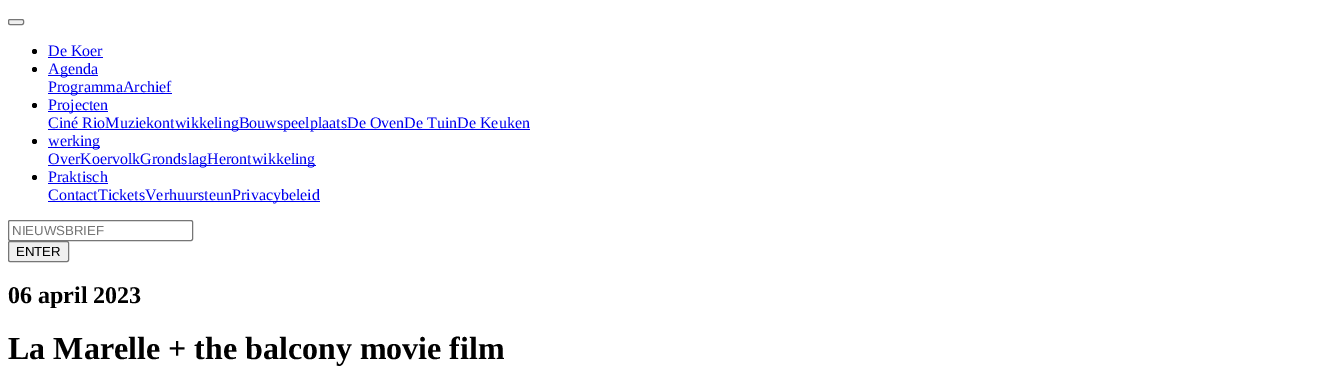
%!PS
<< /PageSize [1344 388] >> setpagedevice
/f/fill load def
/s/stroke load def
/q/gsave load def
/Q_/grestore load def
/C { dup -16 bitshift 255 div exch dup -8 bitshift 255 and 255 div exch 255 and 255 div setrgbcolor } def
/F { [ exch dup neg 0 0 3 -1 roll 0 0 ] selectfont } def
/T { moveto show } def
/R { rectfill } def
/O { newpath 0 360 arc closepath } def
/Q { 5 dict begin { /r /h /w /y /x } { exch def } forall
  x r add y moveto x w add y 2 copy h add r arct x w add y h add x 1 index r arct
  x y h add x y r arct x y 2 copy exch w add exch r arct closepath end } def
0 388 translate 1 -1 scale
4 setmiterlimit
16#FFFFFF C
0 0 1344 388 R
16#EFEFEF C
8.5 19.5 15 5 1.5 Q q f Q_
16#767676 C
s
16#000000 C
34.5 51.5 2.5 O f
/LiberationSerif-Regular 16 F
16#0000EE C
(De Koer) 48 56 T
48 57 55 1 R
16#000000 C
34.5 69.5 2.5 O f
16#0000EE C
48 75 50 1 R
(Agenda) 48 74 T
48 93 124 1 R
(ProgrammaArchief) 48 92 T
16#000000 C
34.5 105.5 2.5 O f
16#0000EE C
48 111 60 1 R
(Projecten) 48 110 T
48 129 356 1 R
(Ciné RioMuziekontwikkelingBouwspeelplaatsDe OvenDe TuinDe Keuken) 48 128 T
404 129 126 1 R
16#000000 C
34.5 141.5 2.5 O f
16#0000EE C
48 147 52 1 R
(werking) 48 146 T
48 165 268 1 R
(OverKoervolkGrondslagHerontwikkeling) 48 164 T
16#000000 C
34.5 177.5 2.5 O f
16#0000EE C
(Praktisch) 48 182 T
48 183 60 1 R
48 201 272 1 R
(ContactTicketsVerhuursteunPrivacybeleid) 48 200 T
16#767676 C
8.5 220.5 184 20 1.5 Q s
/LiberationSans-Regular 13.25 F
16#757575 C
(NIEUWSBRIEF) 12 235 T
16#EFEFEF C
8.5 241.5 60 20 1.5 Q q f Q_
16#767676 C
s
16#000000 C
(ENTER) 16 256 T
/LiberationSerif-Bold 24 F
(06 april 2023) 8 303 T
/LiberationSerif-Bold 32 F
(La Marelle + the balcony movie film) 8 359 T
showpage
